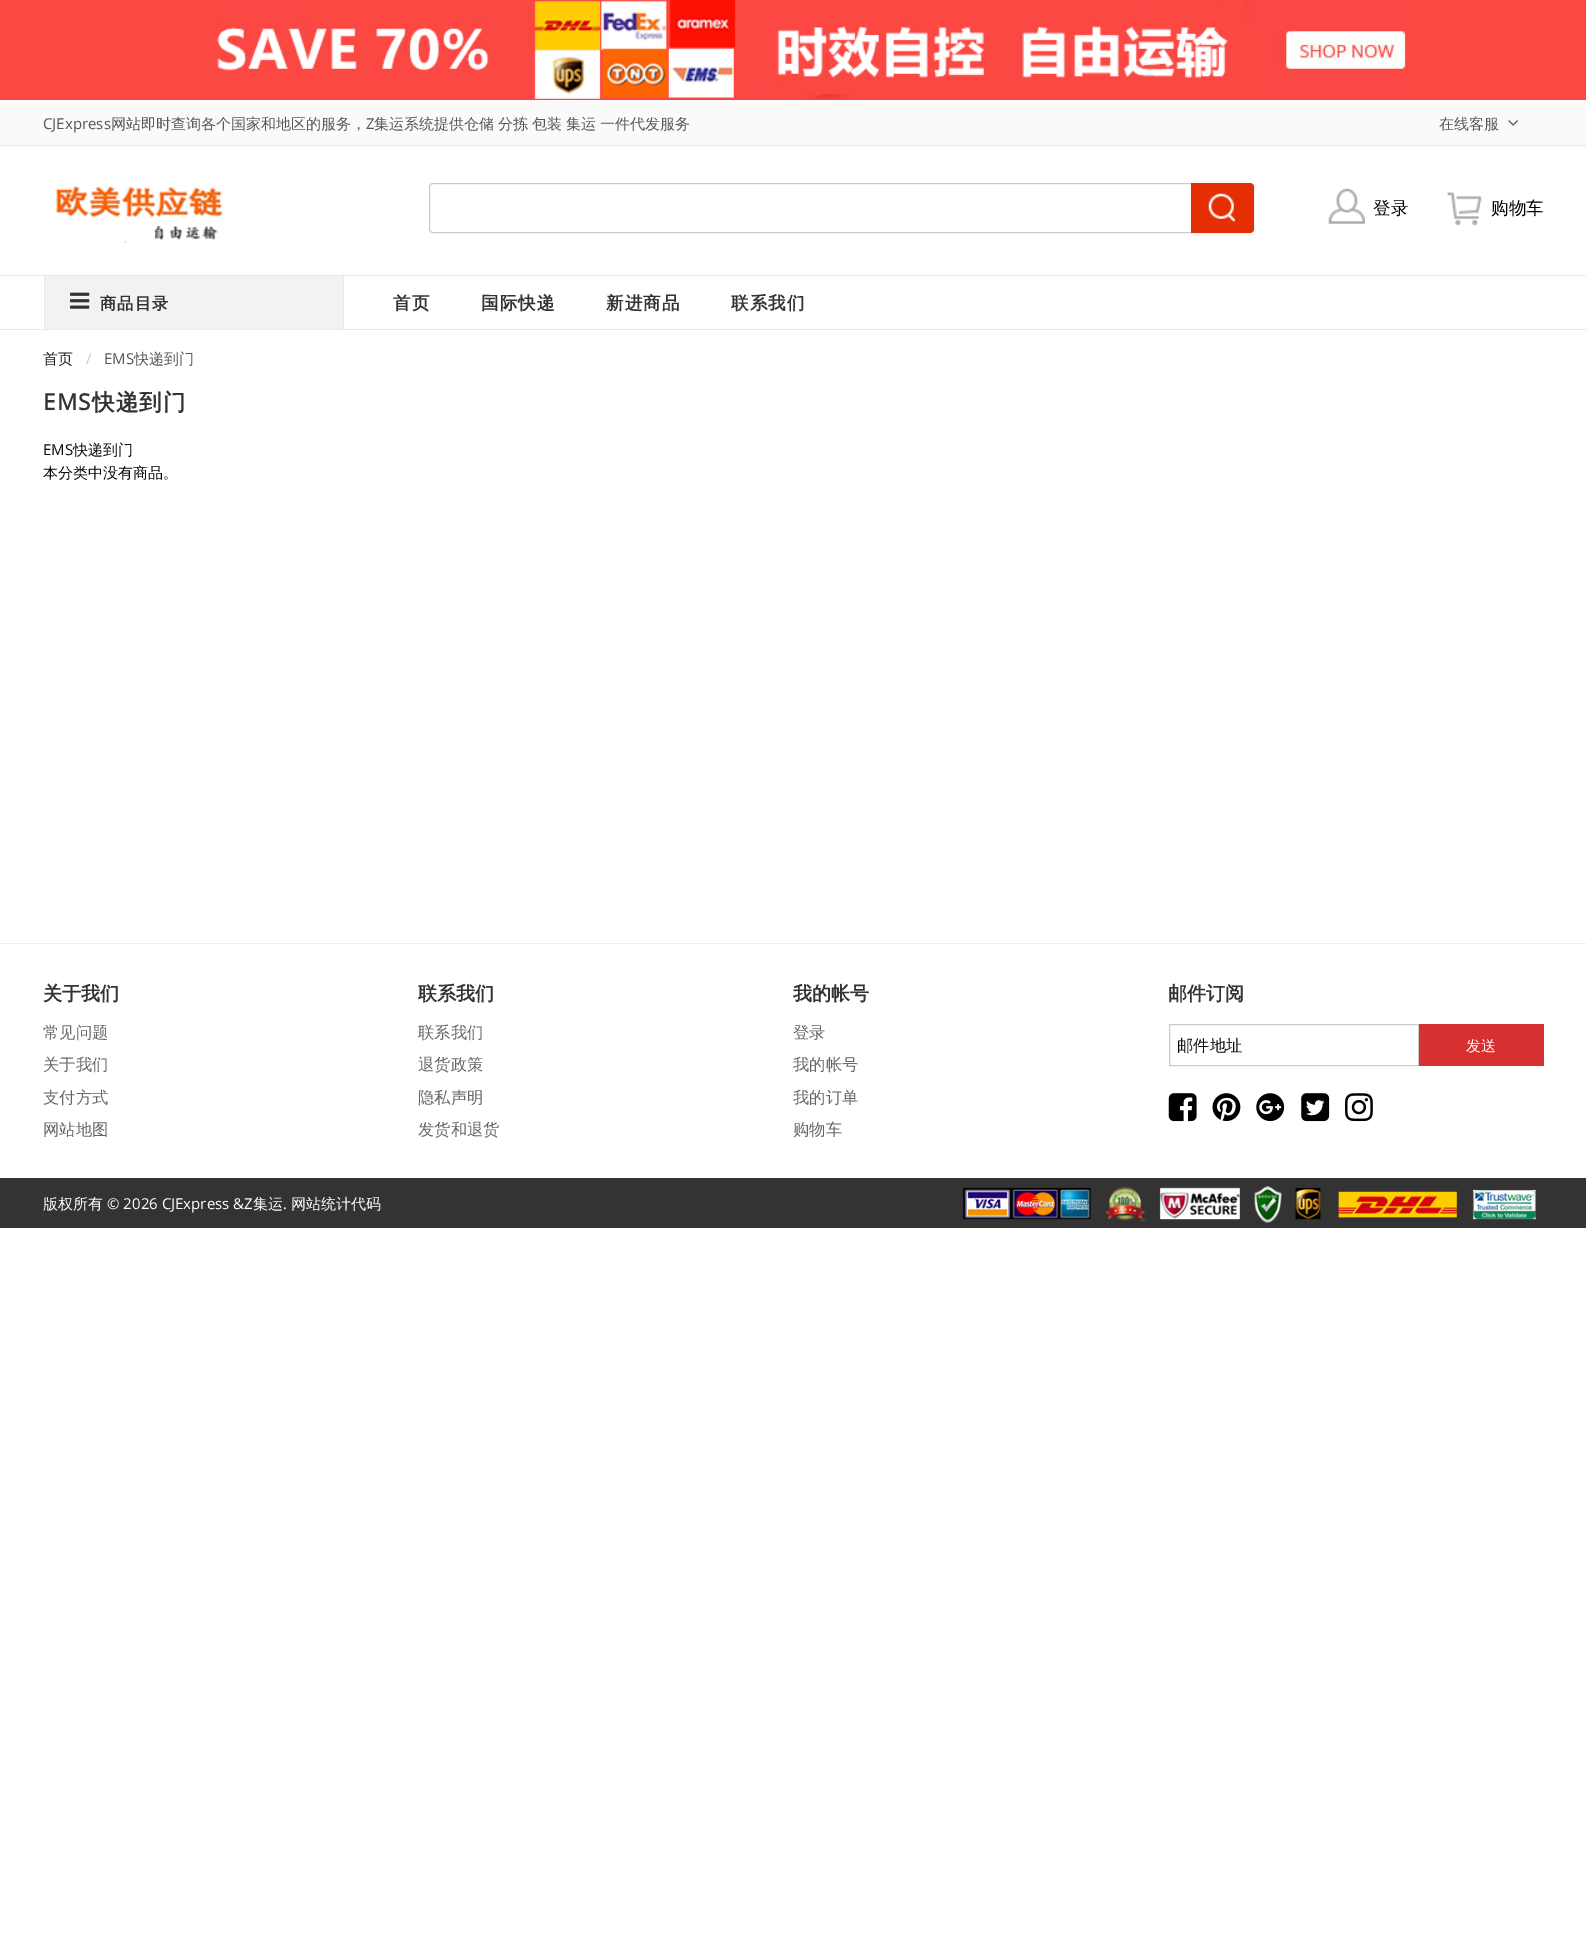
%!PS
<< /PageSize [1586 1949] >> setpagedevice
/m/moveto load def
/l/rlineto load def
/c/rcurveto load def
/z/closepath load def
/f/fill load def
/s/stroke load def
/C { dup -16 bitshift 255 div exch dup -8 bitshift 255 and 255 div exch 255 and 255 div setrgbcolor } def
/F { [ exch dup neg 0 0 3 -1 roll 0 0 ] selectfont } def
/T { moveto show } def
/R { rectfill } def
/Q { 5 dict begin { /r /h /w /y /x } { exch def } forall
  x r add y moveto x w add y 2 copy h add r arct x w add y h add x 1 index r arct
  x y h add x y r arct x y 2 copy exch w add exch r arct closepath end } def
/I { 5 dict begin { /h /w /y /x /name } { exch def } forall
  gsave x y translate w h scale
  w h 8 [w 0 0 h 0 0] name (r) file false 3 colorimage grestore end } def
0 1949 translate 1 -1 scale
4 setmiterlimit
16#FFFFFF C
0 0 1586 1949 R
16#FB4843 C
0 0 1586 100 R
(1.rgb) 217 0 1191 100 I
16#FAFAFA C
0 100 1586 45 R
16#E9E9E9 C
0 145 1586 1 R
/OpenSans-Regular 15 F
16#575757 C
(CJExpress) 43 129 T
/WenQuanYiZenHei-Medium 15 F
(网站即时查询各个国家和地区的服务，) 111 129 T
/OpenSans-Regular 15 F
(Z) 366 129 T
/WenQuanYiZenHei-Medium 15 F
374 129 m -.5 0 32 (集运系统提供仓储 分拣 包装 集运 一件代发服务) widthshow
(在线客服) 1439 129 T
(2.rgb) 1508 120 10 6 I
(3.rgb) 56 186 167 57 I
16#CBCBCB C
429.5 183.5 824 49 3.5 Q s
16#E62E04 C
1191 183 m 59 0 l 2 0 4 2 4 4 c 0 42 l 0 2 -2 4 -4 4 c -59 0 l z f
(4.rgb) 1208 193 27 29 I
(5.rgb) 1328 188 37 36 I
/WenQuanYiZenHei-Medium 17.5 F
16#000000 C
(登录) 1373 214 T
(6.rgb) 1447 192 35 34 I
(购物车) 1491 214 T
16#E9E9E9 C
0 275 1586 1 R
0 329 1586 1 R
16#F2F2F2 C
45 276 298 53 R
16#E9E9E9 C
343 276 1 53 R
44 276 1 53 R
(7.rgb) 70 292 20 17 I
/WenQuanYiZenHei-Bold 16.25 F
16#333333 C
100 309 m 1 0 (商品目录) ashow
/WenQuanYiZenHei-Bold 17.5 F
393 309 m 1 0 (首页) ashow
481 309 m 1 0 (国际快递) ashow
606 309 m 1 0 (新进商品) ashow
731 309 m 1 0 (联系我们) ashow
/WenQuanYiZenHei-Medium 15 F
16#222222 C
(首页) 43 364 T
/OpenSans-Regular 15 F
16#CACACA C
(/) 86 364 T
16#575757 C
(EMS) 104 364 T
/WenQuanYiZenHei-Medium 15 F
(快递到门) 134 364 T
/OpenSans-Bold 22.5 F
16#333333 C
43 410 m 1 0 (EMS) ashow
/WenQuanYiZenHei-Bold 22.5 F
92 410 m 1 0 (快递到门) ashow
/OpenSans-Regular 15 F
16#0A0A0A C
(EMS) 43 455 T
/WenQuanYiZenHei-Medium 15 F
(快递到门) 73 455 T
(本分类中没有商品。) 43 478 T
16#EEEEEE C
0 943 1586 1 R
/WenQuanYiZenHei-Bold 19 F
16#333333 C
(关于我们) 43 1000 T
/WenQuanYiZenHei-Medium 16.25 F
16#666666 C
(常见问题) 43 1038 T
(关于我们) 43 1070 T
(支付方式) 43 1103 T
(网站地图) 43 1135 T
/WenQuanYiZenHei-Bold 19 F
16#333333 C
(联系我们) 418 1000 T
/WenQuanYiZenHei-Medium 16.25 F
16#666666 C
(联系我们) 418 1038 T
(退货政策) 418 1070 T
(隐私声明) 418 1103 T
(发货和退货) 418 1135 T
/WenQuanYiZenHei-Bold 19 F
16#333333 C
(我的帐号) 793 1000 T
/WenQuanYiZenHei-Medium 16.25 F
16#666666 C
(登录) 793 1038 T
(我的帐号) 793 1070 T
(我的订单) 793 1103 T
(购物车) 793 1135 T
/WenQuanYiZenHei-Bold 19 F
16#333333 C
(邮件订阅) 1168 1000 T
16#CCCCCC C
1169.5 1024.5 249 41 rectstroke
/WenQuanYiZenHei-Medium 16.25 F
16#0A0A0A C
(邮件地址) 1177 1051 T
16#D63030 C
1419 1024 125 42 R
/WenQuanYiZenHei-Medium 15 F
16#FFFFFF C
(发送) 1466 1051 T
(8.rgb) 1168 1093 29 29 I
(9.rgb) 1212 1093 29 29 I
(10.rgb) 1256 1093 29 29 I
(11.rgb) 1301 1093 29 29 I
(12.rgb) 1345 1093 28 29 I
16#333333 C
0 1178 1586 50 R
16#FFFFFF C
(版权所有) 43 1209 T
/OpenSans-Regular 15 F
(© 2026 CJExpress &Z) 107 1209 T
/WenQuanYiZenHei-Medium 15 F
(集运) 253 1209 T
/OpenSans-Regular 15 F
(.) 283 1209 T
/WenQuanYiZenHei-Medium 15 F
(网站统计代码) 291 1209 T
(13.rgb) 962 1186 574 37 I
showpage
